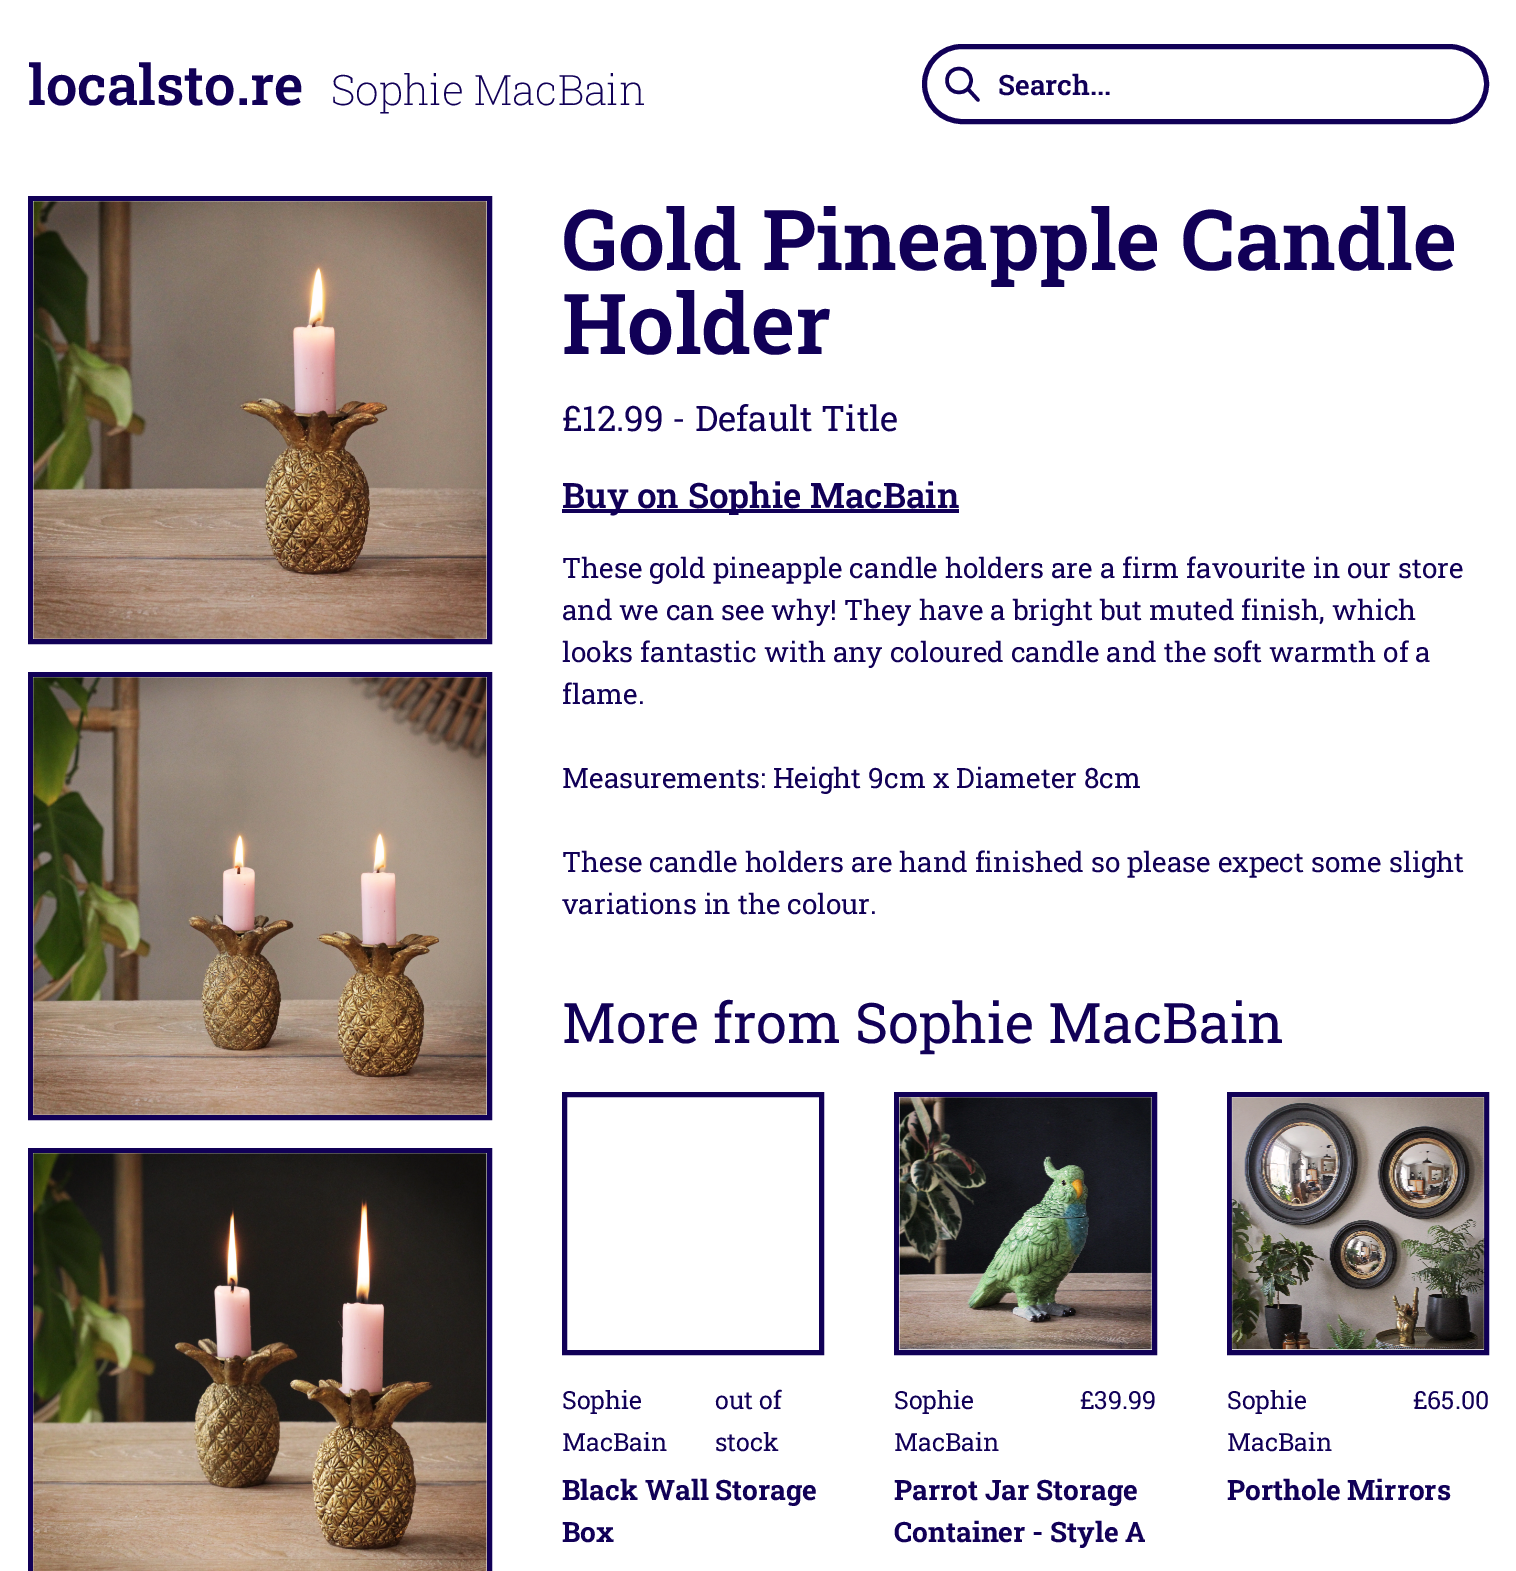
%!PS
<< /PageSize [1516 1571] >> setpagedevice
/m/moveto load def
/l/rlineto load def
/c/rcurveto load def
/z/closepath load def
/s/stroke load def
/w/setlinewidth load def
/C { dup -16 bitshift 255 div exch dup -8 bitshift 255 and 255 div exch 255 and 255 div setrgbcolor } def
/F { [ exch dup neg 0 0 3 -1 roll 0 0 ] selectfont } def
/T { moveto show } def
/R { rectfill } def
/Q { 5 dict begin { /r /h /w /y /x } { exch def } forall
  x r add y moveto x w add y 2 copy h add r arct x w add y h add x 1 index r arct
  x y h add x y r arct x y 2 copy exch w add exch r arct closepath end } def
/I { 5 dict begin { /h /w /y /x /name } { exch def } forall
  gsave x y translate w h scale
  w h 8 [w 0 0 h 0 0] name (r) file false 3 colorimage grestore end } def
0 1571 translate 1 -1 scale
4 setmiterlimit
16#FFFFFF C
0 0 1516 1571 R
/RobotoSlab-SemiBold 56 F
16#110057 C
(localsto.re) 28 105 T
/RobotoSlab-ExtraLight 42 F
(Sophie MacBain) 331 105 T
5 w
924.5 46.5 562 75 37.5 Q s
3.5 w
1 setlinecap
1 setlinejoin
978 100 m -10 -11 l 971 80.5 m 0 16 -24 16 -24 0 c 0 -16 24 -16 24 0 c z s
/RobotoSlab-SemiBold 28 F
(Search...) 998 95 T
5 w
0 setlinecap
0 setlinejoin
30.5 198.5 459 443 rectstroke
(1.rgb) 33 201 454 438 I
30.5 674.5 459 443 rectstroke
(2.rgb) 33 677 454 438 I
30.5 1150.5 459 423 rectstroke
(3.rgb) 33 1153 454 418 I
/RobotoSlab-SemiBold 84 F
(Gold Pineapple Candle) 562 270 T
(Holder) 562 354 T
/RobotoSlab-Regular 35 F
(£12.99 - Default Title) 562 431 T
562 509 397 4 R
/RobotoSlab-SemiBold 35 F
(Buy on Sophie MacBain) 562 508 T
/RobotoSlab-Regular 28 F
(These gold pineapple candle holders are a firm favourite in our store) 562 578 T
(and we can see why! They have a bright but muted finish, which) 562 620 T
(looks fantastic with any coloured candle and the soft warmth of a) 562 662 T
(flame.) 562 704 T
(Measurements: Height 9cm x Diameter 8cm) 562 788 T
(These candle holders are hand finished so please expect some slight) 562 872 T
(variations in the colour.) 562 914 T
/RobotoSlab-Regular 56 F
(More from Sophie MacBain) 562 1043 T
564.5 1094.5 257 258 rectstroke
/RobotoSlab-Regular 25 F
(Sophie) 562 1409 T
(out of) 715 1409 T
(stock) 715 1451 T
(MacBain) 562 1451 T
/RobotoSlab-Bold 28 F
(Black Wall Storage) 562 1500 T
(Box) 562 1542 T
896.5 1094.5 258 258 rectstroke
(4.rgb) 898 1097 254 253 I
/RobotoSlab-Regular 25 F
(Sophie) 894 1409 T
(£39.99) 1080 1409 T
(MacBain) 894 1451 T
/RobotoSlab-Bold 28 F
(Parrot Jar Storage) 894 1500 T
(Container - Style A) 894 1542 T
1229.5 1094.5 257 258 rectstroke
(5.rgb) 1231 1097 254 253 I
/RobotoSlab-Regular 25 F
(Sophie) 1227 1409 T
(£65.00) 1413 1409 T
(MacBain) 1227 1451 T
/RobotoSlab-Bold 28 F
(Porthole Mirrors) 1227 1500 T
showpage
